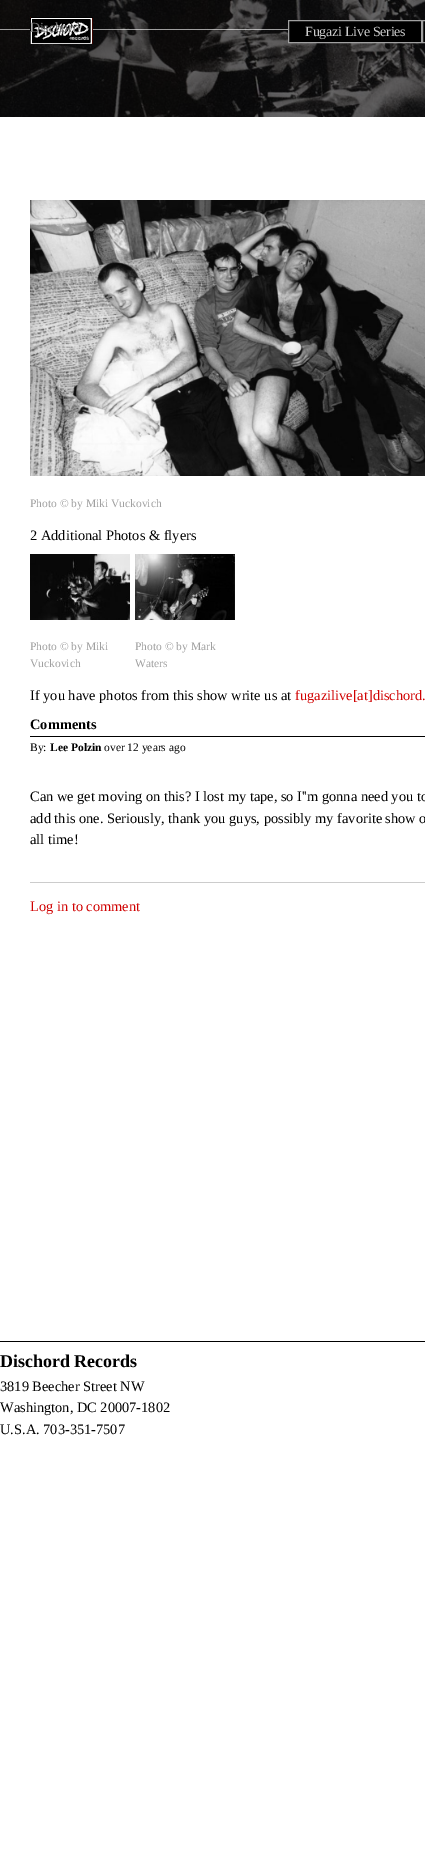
%!PS
<< /PageSize [425 1849] /PageUsesTransparency true >> setpagedevice
/m/moveto load def
/l/rlineto load def
/z/closepath load def
/f/fill load def
/s/stroke load def
/q/gsave load def
/Q_/grestore load def
/C { dup -16 bitshift 255 div exch dup -8 bitshift 255 and 255 div exch 255 and 255 div setrgbcolor } def
/F { [ exch dup neg 0 0 3 -1 roll 0 0 ] selectfont } def
/T { moveto show } def
/R { rectfill } def
/A { dup .setfillconstantalpha .setstrokeconstantalpha } def
/I { 5 dict begin { /h /w /y /x /name } { exch def } forall
  gsave x y translate w h scale
  w h 8 [w 0 0 h 0 0] name (r) file false 3 colorimage grestore end } def
0 .pushpdf14devicefilter
0 1849 translate 1 -1 scale
4 setmiterlimit
16#FFFFFF C
0 0 425 1849 R
(1.rgb) 0 0 425 117 I
0.6 A
16#000000 C
0 0 425 30 R
16#FFFFFF C
0 29 288 1 R
16#000000 C
0 30 425 87 R
1 A
(2.rgb) 30 17 63 27 I
/LiberationSerif-Regular 14 F
16#6E6E6E C
30 32 m -.25 0 (Dischord) ashow
16#000000 C
288.5 20.5 m 133 0 l 0 22 l -133 0 l z q f Q_
16#A0A0A0 C
s
16#CCCCCC C
305 36 m -.25 0 (Fugazi Live Series) ashow
16#000000 C
422.5 20.5 m 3 0 l 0 22 l -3 0 l z q f Q_
16#A0A0A0 C
s
(3.rgb) 30 200 395 276 I
/LiberationSerif-Regular 11.5 F
(Photo © by Miki Vuckovich) 30 507 T
/LiberationSerif-Regular 14.4 F
16#000000 C
(2 Additional Photos & flyers) 30 540 T
(4.rgb) 30 554 100 66 I
/LiberationSerif-Regular 11.5 F
16#A0A0A0 C
(Photo © by Miki) 30 650 T
(Vuckovich) 30 667 T
(5.rgb) 135 554 100 66 I
(Photo © by Mark) 135 650 T
(Waters) 135 667 T
/LiberationSerif-Regular 14.4 F
16#000000 C
(If you have photos from this show write us at) 30 700 T
16#D00000 C
(fugazilive[at]dischord.) 295 700 T
/LiberationSerif-Bold 14.4 F
16#000000 C
(Comments) 30 729 T
30 736 395 1 R
/LiberationSerif-Regular 11.5 F
(By:) 30 751 T
/LiberationSerif-Bold 11.5 F
(Lee Polzin) 50 751 T
/LiberationSerif-Regular 11.5 F
(over 12 years ago) 104 751 T
16#CCCCCC C
30 882 395 1 R
/LiberationSerif-Regular 14.4 F
16#000000 C
(Can we get moving on this? I lost my tape, so I''m gonna need you to) 30 801 T
(add this one. Seriously, thank you guys, possibly my favorite show o) 30 823 T
(all time!) 30 844 T
16#D00000 C
(Log in to comment) 30 911 T
16#000000 C
0 1341 425 1 R
/LiberationSerif-Bold 18 F
(Dischord Records) 0 1367 T
/LiberationSerif-Regular 14.4 F
(3819 Beecher Street NW) 0 1391 T
(Washington, DC 20007-1802) 0 1412 T
(U.S.A. 703-351-7507) 0 1434 T
.poppdf14devicefilter showpage
